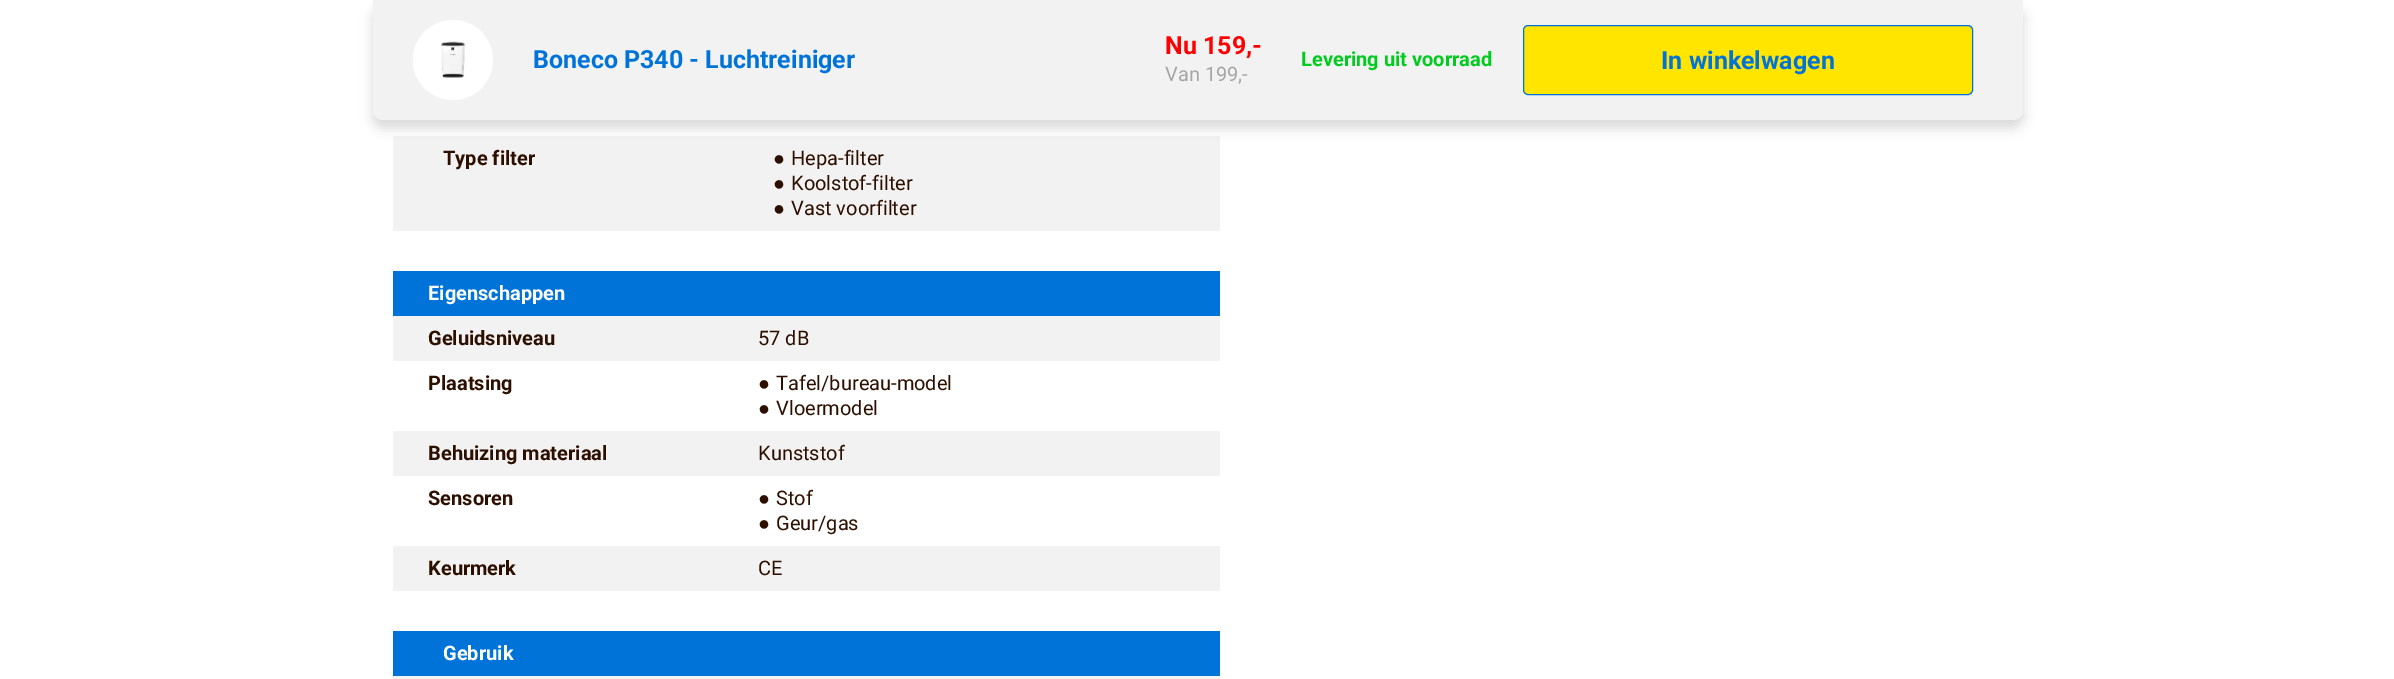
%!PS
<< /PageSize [2394 679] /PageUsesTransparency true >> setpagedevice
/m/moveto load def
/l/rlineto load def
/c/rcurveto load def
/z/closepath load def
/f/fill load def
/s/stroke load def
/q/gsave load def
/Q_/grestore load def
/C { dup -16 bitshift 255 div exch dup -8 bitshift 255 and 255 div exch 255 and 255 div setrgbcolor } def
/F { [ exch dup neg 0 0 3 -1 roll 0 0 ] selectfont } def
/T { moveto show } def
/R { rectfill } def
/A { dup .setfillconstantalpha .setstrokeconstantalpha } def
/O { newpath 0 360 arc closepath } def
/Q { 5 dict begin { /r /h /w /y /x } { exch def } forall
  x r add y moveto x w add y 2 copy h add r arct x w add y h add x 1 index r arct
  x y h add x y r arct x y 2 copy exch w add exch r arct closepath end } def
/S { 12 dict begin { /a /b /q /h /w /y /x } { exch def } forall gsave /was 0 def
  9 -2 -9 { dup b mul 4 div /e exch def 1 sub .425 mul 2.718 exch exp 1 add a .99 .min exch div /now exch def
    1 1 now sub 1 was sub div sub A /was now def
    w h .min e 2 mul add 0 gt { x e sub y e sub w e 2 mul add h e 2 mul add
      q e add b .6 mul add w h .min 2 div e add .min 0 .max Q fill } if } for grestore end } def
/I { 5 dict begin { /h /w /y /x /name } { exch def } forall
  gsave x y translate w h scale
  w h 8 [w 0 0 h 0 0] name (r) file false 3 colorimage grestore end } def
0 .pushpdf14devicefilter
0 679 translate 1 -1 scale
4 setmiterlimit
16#FFFFFF C
0 0 2394 679 R
16#F3F2F2 C
393 136 827 95 R
16#000000 C
373 8 1650 120 10 6 .15 S
16#F3F2F2 C
373 0 m 1650 0 l 0 110 l 0 5.5 -4.5 10 -10 10 c -1630 0 l -5.5 0 -10 -4.5 -10 -10 c z f
16#FFFFFF C
453 60 40 O f
(1.rgb) 413 39 52 42 I
/Roboto-Bold 25 F
16#0073D8 C
(Boneco P340 - Luchtreiniger) 533 68 T
16#FE0002 C
(Nu 159,-) 1165 54 T
/Roboto-Regular 20 F
16#A5A5A5 C
(Van 199,-) 1165 81 T
/Roboto-Bold 20 F
16#02CB1F C
(Levering uit voorraad) 1301 66 T
16#FFE500 C
1523.5 25.5 449 69 4.5 Q q f Q_
16#0073D8 C
s
/Roboto-Bold 25 F
(In winkelwagen) 1661 69 T
/Roboto-Bold 20 F
16#2D0F00 C
(Type filter) 443 165 T
/LiberationSans-Regular 20 F
(●) 773 165 T
/Roboto-Regular 20 F
(Hepa-filter) 791 165 T
/LiberationSans-Regular 20 F
(●) 773 190 T
/Roboto-Regular 20 F
(Koolstof-filter) 791 190 T
/LiberationSans-Regular 20 F
(●) 773 215 T
/Roboto-Regular 20 F
(Vast voorfilter) 791 215 T
16#0073D8 C
393 271 827 45 R
/Roboto-Bold 20 F
16#FFFFFF C
(Eigenschappen) 428 300 T
16#F3F2F2 C
393 316 827 45 R
16#2D0F00 C
(Geluidsniveau) 428 345 T
/Roboto-Regular 20 F
(57 dB) 758 345 T
/Roboto-Bold 20 F
(Plaatsing) 428 390 T
/LiberationSans-Regular 20 F
(●) 758 390 T
/Roboto-Regular 20 F
(Tafel/bureau-model) 776 390 T
/LiberationSans-Regular 20 F
(●) 758 415 T
/Roboto-Regular 20 F
(Vloermodel) 776 415 T
16#F3F2F2 C
393 431 827 45 R
/Roboto-Bold 20 F
16#2D0F00 C
(Behuizing materiaal) 428 460 T
/Roboto-Regular 20 F
(Kunststof) 758 460 T
/Roboto-Bold 20 F
(Sensoren) 428 505 T
/LiberationSans-Regular 20 F
(●) 758 505 T
/Roboto-Regular 20 F
(Stof) 776 505 T
/LiberationSans-Regular 20 F
(●) 758 530 T
/Roboto-Regular 20 F
(Geur/gas) 776 530 T
16#F3F2F2 C
393 546 827 45 R
/Roboto-Bold 20 F
16#2D0F00 C
(Keurmerk) 428 575 T
/Roboto-Regular 20 F
(CE) 758 575 T
16#0073D8 C
393 631 827 45 R
/Roboto-Bold 20 F
16#FFFFFF C
(Gebruik) 443 660 T
16#F3F2F2 C
393 676 827 3 R
.poppdf14devicefilter showpage
